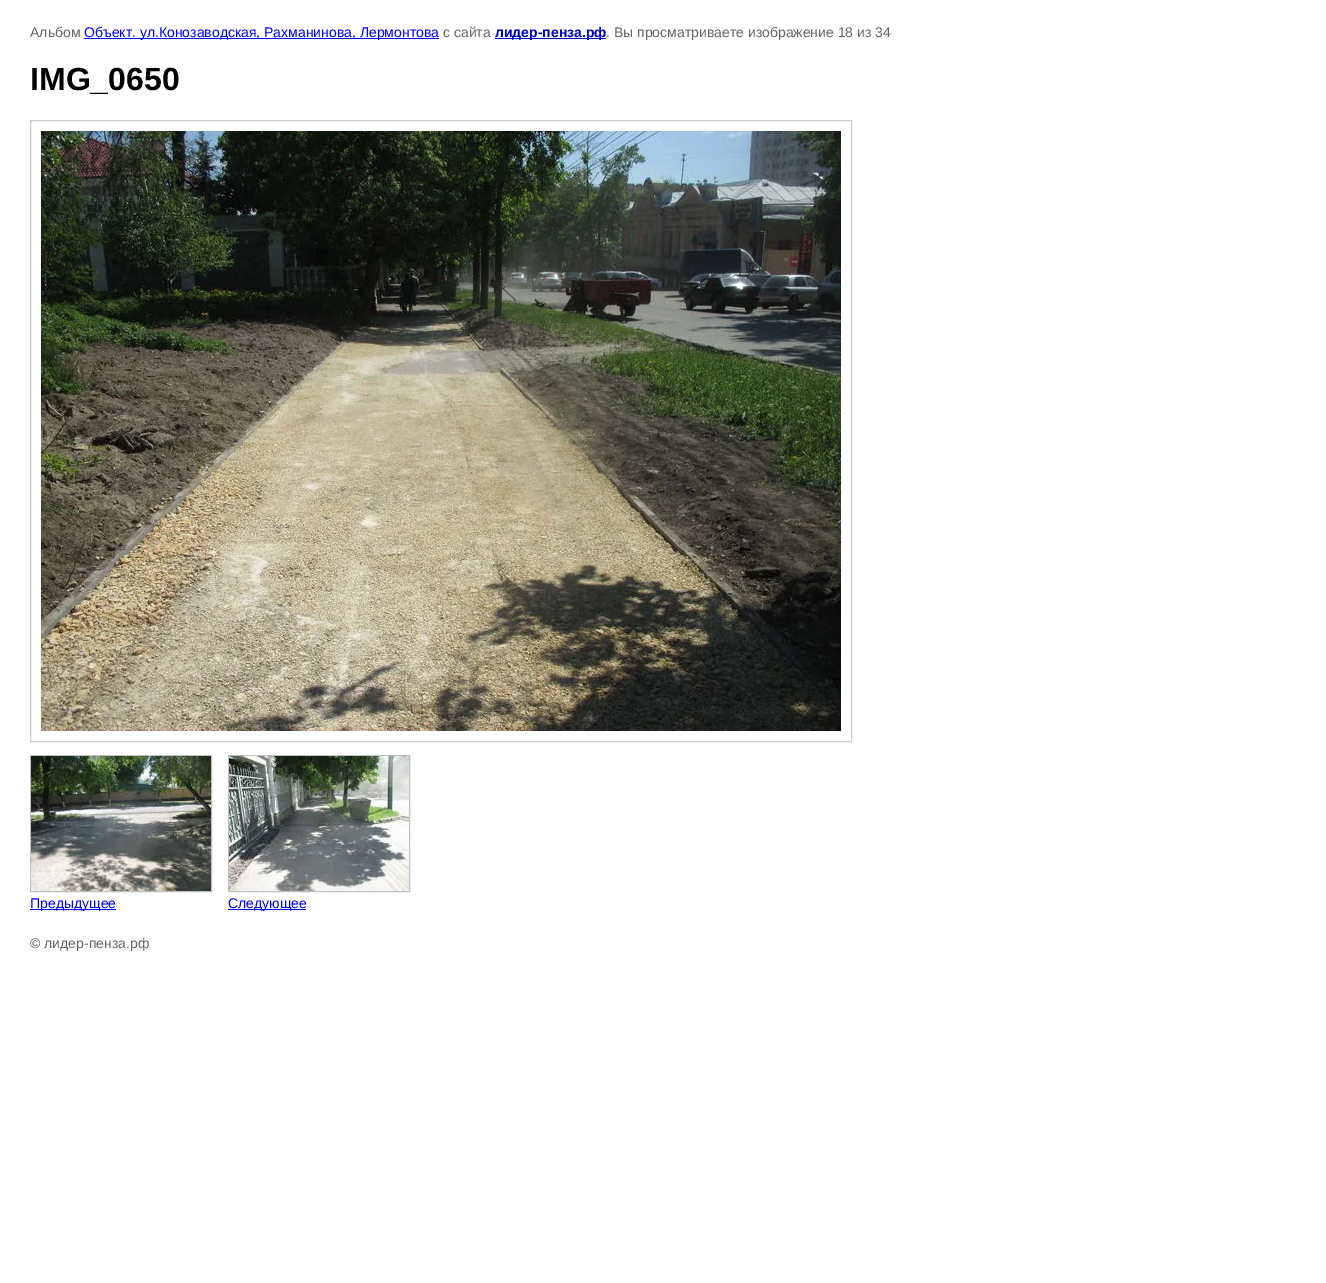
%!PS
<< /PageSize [1326 1283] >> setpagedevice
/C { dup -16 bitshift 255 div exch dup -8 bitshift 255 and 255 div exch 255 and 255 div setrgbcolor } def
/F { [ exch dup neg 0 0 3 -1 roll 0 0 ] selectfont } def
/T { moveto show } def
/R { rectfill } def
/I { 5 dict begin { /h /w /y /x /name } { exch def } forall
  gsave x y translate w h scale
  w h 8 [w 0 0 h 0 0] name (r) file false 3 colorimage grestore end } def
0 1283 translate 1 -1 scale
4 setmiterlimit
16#FFFFFF C
0 0 1326 1283 R
/LiberationSans-Regular 14 F
16#666666 C
(Альбом) 30 37 T
16#0000FF C
84 38 355 1 R
(Объект. ул.Конозаводская, Рахманинова, Лермонтова) 84 37 T
16#666666 C
(с сайта) 443 37 T
16#0000CC C
495 38 111 1 R
/LiberationSans-Bold 14 F
(лидер-пенза.рф) 495 37 T
/LiberationSans-Regular 14 F
16#666666 C
(. Вы просматриваете изображение 18 из 34) 606 37 T
/LiberationSans-Bold 32 F
16#000000 C
(IMG_0650) 30 90 T
16#CCCCCC C
30.5 120.5 821 621 rectstroke
(1.rgb) 41 131 800 600 I
16#C0C0C0 C
30.5 755.5 181 136 rectstroke
(2.rgb) 31 756 180 135 I
16#0000FF C
30 909 86 1 R
/LiberationSans-Regular 14 F
(Предыдущее) 30 908 T
16#C0C0C0 C
228.5 755.5 181 136 rectstroke
(3.rgb) 229 756 180 135 I
16#0000FF C
228 909 78 1 R
(Следующее) 228 908 T
16#666666 C
(© лидер-пенза.рф) 30 948 T
showpage
